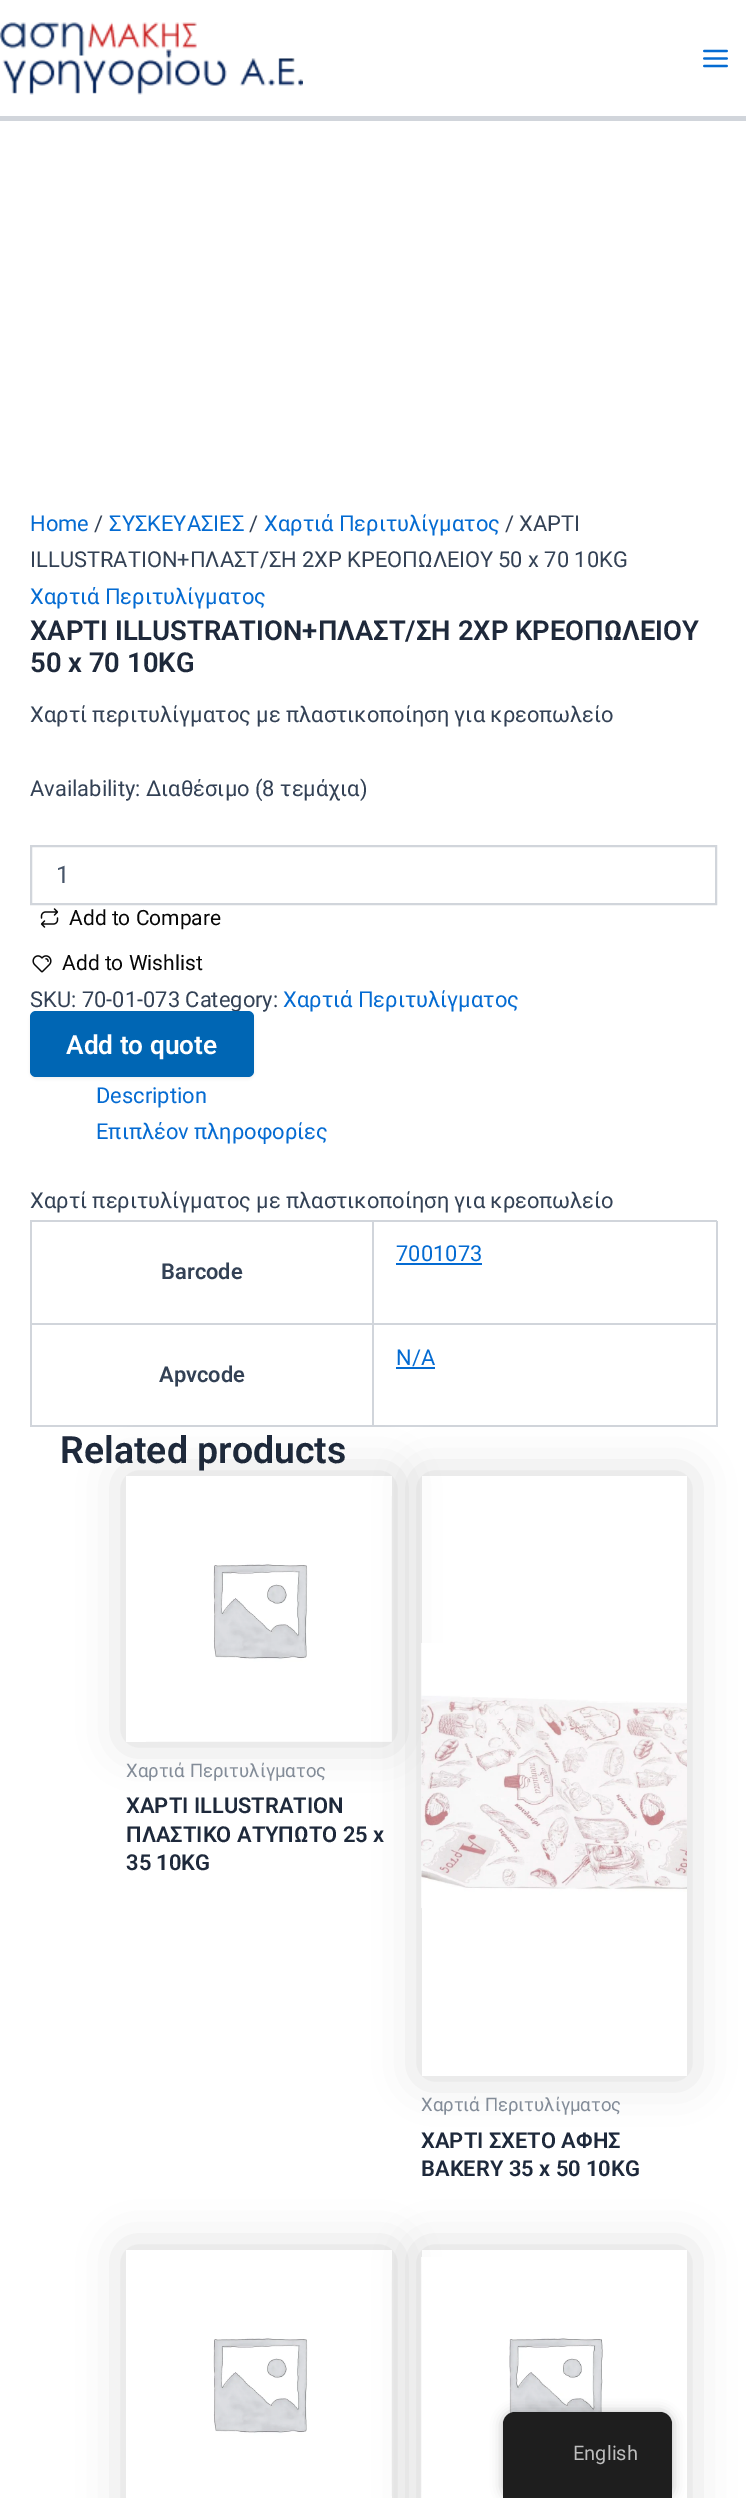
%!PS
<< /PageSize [746 2498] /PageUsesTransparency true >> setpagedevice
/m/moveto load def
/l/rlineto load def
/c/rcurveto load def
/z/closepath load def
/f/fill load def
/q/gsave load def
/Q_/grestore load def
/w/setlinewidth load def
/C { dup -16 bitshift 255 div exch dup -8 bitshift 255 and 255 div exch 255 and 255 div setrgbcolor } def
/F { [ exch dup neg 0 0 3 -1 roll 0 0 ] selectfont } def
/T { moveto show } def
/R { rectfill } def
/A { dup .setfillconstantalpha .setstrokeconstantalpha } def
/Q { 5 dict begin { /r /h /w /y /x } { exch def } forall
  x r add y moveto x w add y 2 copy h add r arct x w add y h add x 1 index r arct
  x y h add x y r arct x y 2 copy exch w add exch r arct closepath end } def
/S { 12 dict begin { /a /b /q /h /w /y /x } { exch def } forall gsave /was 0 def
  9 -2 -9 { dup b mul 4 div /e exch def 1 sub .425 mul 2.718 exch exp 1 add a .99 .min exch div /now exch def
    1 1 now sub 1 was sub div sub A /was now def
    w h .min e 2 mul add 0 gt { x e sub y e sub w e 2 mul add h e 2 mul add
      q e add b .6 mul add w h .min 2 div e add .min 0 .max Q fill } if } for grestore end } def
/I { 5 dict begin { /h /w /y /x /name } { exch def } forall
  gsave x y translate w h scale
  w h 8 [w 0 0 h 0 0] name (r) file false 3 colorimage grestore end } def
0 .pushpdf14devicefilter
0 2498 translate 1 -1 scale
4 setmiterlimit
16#FFFFFF C
0 0 746 2498 R
16#D1D5DB C
0 116 746 5 R
(1.rgb) 0 22 303 73 I
(2.rgb) 703 49 25 19 I
/Roboto-Regular 21.9 F
16#046BD2 C
(Home) 30 531 T
16#334155 C
(/) 94 531 T
16#046BD2 C
(ΣΥΣΚΕΥΑΣΙΕΣ) 109 531 T
16#334155 C
(/) 249 531 T
16#046BD2 C
(Χαρτιά Περιτυλίγματος) 264 531 T
16#334155 C
(/ ΧΑΡΤΙ) 505 531 T
(ILLUSTRATION+ΠΛΑΣΤ/ΣΗ 2ΧΡ ΚΡΕΟΠΩΛΕΙΟΥ) 30 567 T
(50 x 70 10KG) 498 567 T
16#046BD2 C
(Χαρτιά Περιτυλίγματος) 30 604 T
/Roboto-SemiBold 27.4 F
16#1E293B C
(ΧΑΡΤΙ ILLUSTRATION+ΠΛΑΣΤ/ΣΗ 2ΧΡ ΚΡΕΟΠΩΛΕΙΟΥ) 30 640 T
(50 x 70 10KG) 30 672 T
/Roboto-Regular 21.9 F
16#334155 C
(Χαρτί περιτυλίγματος με πλαστικοποίηση για κρεοπωλείο) 30 722 T
(Availability: Διαθέσιμο \(8 τεμάχια\)) 30 796 T
16#D1D5DB C
2 w
31 846 685 58 rectstroke
/Roboto-Regular 24 F
16#475569 C
(1) 56 883 T
(3.rgb) 40 908 19 20 I
/Roboto-Regular 21 F
16#070707 C
(Add to Compare) 69 925 T
(4.rgb) 32 955 20 18 I
(Add to Wishlist) 62 970 T
/Roboto-Regular 21.9 F
16#334155 C
(SKU: 70-01-073 Category:) 30 1007 T
16#046BD2 C
(Χαρτιά Περιτυλίγματος) 283 1007 T
16#000000 C
30 1013 224 66 6 1.5 .05 S
16#0066B4 C
30 1011 224 66 6 Q f
/Roboto-SemiBold 26.25 F
16#FFFFFF C
(Add to quote) 66 1054 T
/Roboto-Regular 21.9 F
16#046BD2 C
(Description) 96 1103 T
(Επιπλέον πληροφορίες) 96 1139 T
16#334155 C
(Χαρτί περιτυλίγματος με πλαστικοποίηση για κρεοπωλείο) 30 1208 T
16#D1D5DB C
30 1220 687 2 R
30 1220 2 207 R
716 1221 2 206 R
374 1323 343 2 R
16#046BD2 C
(7001073) 396 1261 T
396 1263 86 2 R
16#D1D5DB C
372 1221 2 206 R
32 1323 342 2 R
/Roboto-SemiBold 21.9 F
16#334155 C
(Barcode) 161 1279 T
/Roboto-Regular 21.9 F
16#046BD2 C
(N/A) 396 1365 T
396 1367 39 2 R
16#D1D5DB C
32 1425 685 2 R
/Roboto-SemiBold 21.9 F
16#334155 C
(Apvcode) 159 1382 T
/Roboto-SemiBold 37.5 F
16#1E293B C
(Related products) 60 1463 T
q
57 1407 m 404 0 l 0 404 l -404 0 l z 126 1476 m 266 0 l 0 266 l -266 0 l z eoclip newpath
16#000000 C
126 1476 266 266 0 22.5 .15 S
Q_
(5.rgb) 146 1496 246 246 I
/Roboto-Regular 18.6 F
16#838C98 C
(Χαρτιά Περιτυλίγματος) 126 1777 T
/Roboto-SemiBold 21.9 F
16#1E293B C
(ΧΑΡΤΙ ILLUSTRATION) 126 1813 T
(ΠΛΑΣΤΙΚΟ ΑΤΥΠΩΤΟ 25 x) 126 1842 T
(35 10KG) 126 1870 T
q
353 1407 m 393 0 l 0 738 l -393 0 l z 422 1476 m 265 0 l 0 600 l -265 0 l z eoclip newpath
16#000000 C
422 1476 265 600 0 22.5 .15 S
Q_
(6.rgb) 421 1643 266 265 I
/Roboto-Regular 18.6 F
16#838C98 C
(Χαρτιά Περιτυλίγματος) 421 2111 T
/Roboto-SemiBold 21.9 F
16#1E293B C
(ΧΑΡΤΙ ΣΧΕΤΟ ΑΦΗΣ) 421 2148 T
(BAKERY 35 x 50 10KG) 421 2176 T
q
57 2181 m 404 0 l 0 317 l -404 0 l z 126 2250 m 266 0 l 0 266 l -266 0 l z eoclip newpath
16#000000 C
126 2250 266 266 0 22.5 .15 S
Q_
(7.rgb) 213 2270 179 226 I
q
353 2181 m 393 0 l 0 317 l -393 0 l z 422 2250 m 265 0 l 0 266 l -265 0 l z eoclip newpath
16#000000 C
422 2250 265 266 0 22.5 .15 S
Q_
(8.rgb) 421 2257 182 241 I
16#000000 C
503 2412 169 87 12 6 .25 S
16#1E1E1E C
515 2412 m 145 0 l 6.5 0 12 5.5 12 12 c 0 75 l -169 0 l 0 -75 l 0 -6.5 5.5 -12 12 -12 c z f
/Roboto-Regular 20 F
16#BDBDBD C
(English) 573 2460 T
.poppdf14devicefilter showpage
